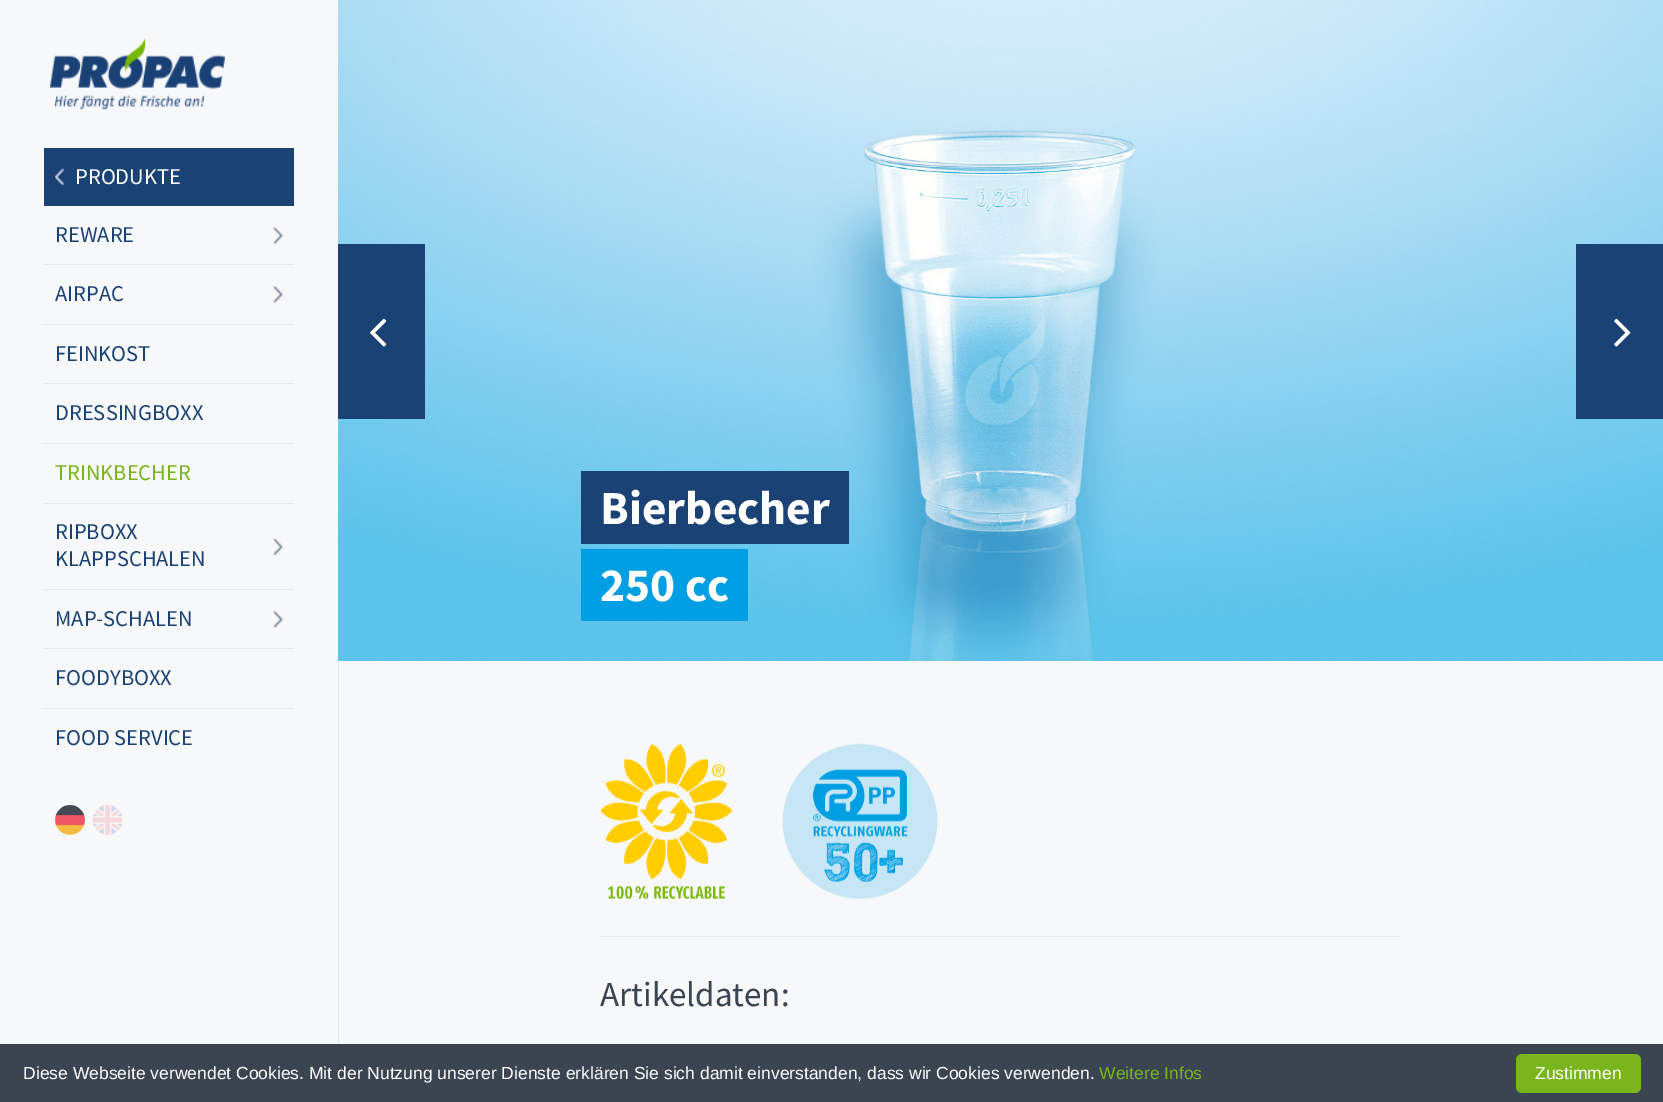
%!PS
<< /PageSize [1663 1102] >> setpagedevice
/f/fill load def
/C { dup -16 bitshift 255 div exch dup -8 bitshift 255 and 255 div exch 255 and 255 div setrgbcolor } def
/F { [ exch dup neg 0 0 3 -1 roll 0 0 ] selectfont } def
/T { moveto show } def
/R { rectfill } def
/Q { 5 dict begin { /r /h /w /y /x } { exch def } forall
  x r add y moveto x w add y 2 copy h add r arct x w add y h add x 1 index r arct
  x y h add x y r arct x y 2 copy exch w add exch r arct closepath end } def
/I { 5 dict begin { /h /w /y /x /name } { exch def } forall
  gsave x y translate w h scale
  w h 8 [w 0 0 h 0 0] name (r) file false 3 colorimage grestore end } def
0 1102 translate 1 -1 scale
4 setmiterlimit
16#F7F8FA C
0 0 1663 1102 R
(1.rgb) 50 38 175 72 I
16#1B4274 C
44 148 250 58 R
(2.rgb) 55 168 9 18 I
/SourceSansPro-Regular 22.5 F
16#FEFEFE C
(PRODUKTE) 75 184 T
16#E6E9ED C
44 264 250 1 R
16#1B4274 C
(REWARE) 55 242 T
(3.rgb) 273 227 10 18 I
16#E6E9ED C
44 324 250 1 R
16#1B4274 C
(AIRPAC) 55 301 T
(4.rgb) 273 286 10 18 I
16#E6E9ED C
44 383 250 1 R
16#1B4274 C
(FEINKOST) 55 361 T
16#E6E9ED C
44 443 250 1 R
16#1B4274 C
(DRESSINGBOXX) 55 420 T
16#E6E9ED C
44 503 250 1 R
16#7AB51D C
(TRINKBECHER) 55 480 T
16#E6E9ED C
44 589 250 1 R
16#1B4274 C
(RIPBOXX) 55 539 T
(5.rgb) 273 538 10 18 I
(KLAPPSCHALEN) 55 566 T
16#E6E9ED C
44 648 250 1 R
16#1B4274 C
(MAP-SCHALEN) 55 626 T
(6.rgb) 273 610 10 18 I
16#E6E9ED C
44 708 250 1 R
16#1B4274 C
(FOODYBOXX) 55 685 T
(FOOD SERVICE) 55 745 T
(7.rgb) 55 805 30 30 I
(8.rgb) 92 805 31 30 I
(9.rgb) 338 0 1325 661 I
338 244 87 175 R
(10.rgb) 370 318 17 29 I
1576 244 87 175 R
(11.rgb) 1614 318 17 29 I
581 471 268 73 R
/SourceSansPro-Bold 47.5 F
16#FEFEFE C
(Bierbecher) 600 524 T
16#009EE3 C
581 549 167 72 R
16#FEFEFE C
(250 cc) 600 601 T
16#E6E9ED C
338 661 1 383 R
(12.rgb) 600 743 133 156 I
(13.rgb) 782 743 156 156 I
600 936 801 1 R
/SourceSansPro-Regular 35 F
16#3B4552 C
(Artikeldaten:) 600 1006 T
0 1044 1663 58 R
/LiberationSans-Regular 17.5 F
16#FEFEFE C
(Diese Webseite verwendet Cookies. Mit der Nutzung unserer Dienste erklären Sie sich damit einverstanden, dass wir Cookies verwenden.) 23 1079 T
16#7AB51D C
(Weitere Infos) 1099 1079 T
1516 1054 125 39 6 Q f
16#FEFEFE C
(Zustimmen) 1535 1079 T
showpage
